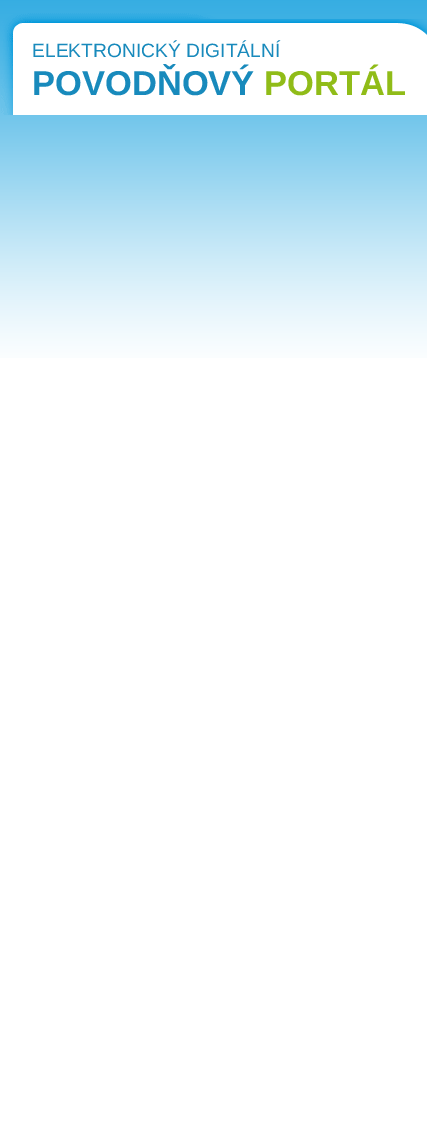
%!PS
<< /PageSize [427 1142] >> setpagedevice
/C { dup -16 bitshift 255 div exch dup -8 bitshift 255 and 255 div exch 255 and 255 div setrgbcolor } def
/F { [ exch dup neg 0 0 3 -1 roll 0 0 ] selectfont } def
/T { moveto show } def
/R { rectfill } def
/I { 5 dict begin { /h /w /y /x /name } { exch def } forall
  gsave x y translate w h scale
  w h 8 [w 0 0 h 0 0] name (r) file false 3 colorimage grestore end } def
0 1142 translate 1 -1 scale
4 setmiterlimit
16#FFFFFF C
0 0 427 1142 R
(1.rgb) 0 0 427 358 I
(2.rgb) 1 13 426 102 I
(3.rgb) 32 19 395 64 I
/LiberationSans-Regular 19.25 F
16#188ABC C
(ELEKTRONICKÝ DIGITÁLNÍ) 32 57 T
/LiberationSans-Bold 34.5 F
(POVODŇOVÝ) 32 95 T
16#90BC18 C
(PORTÁL) 264 95 T
showpage
